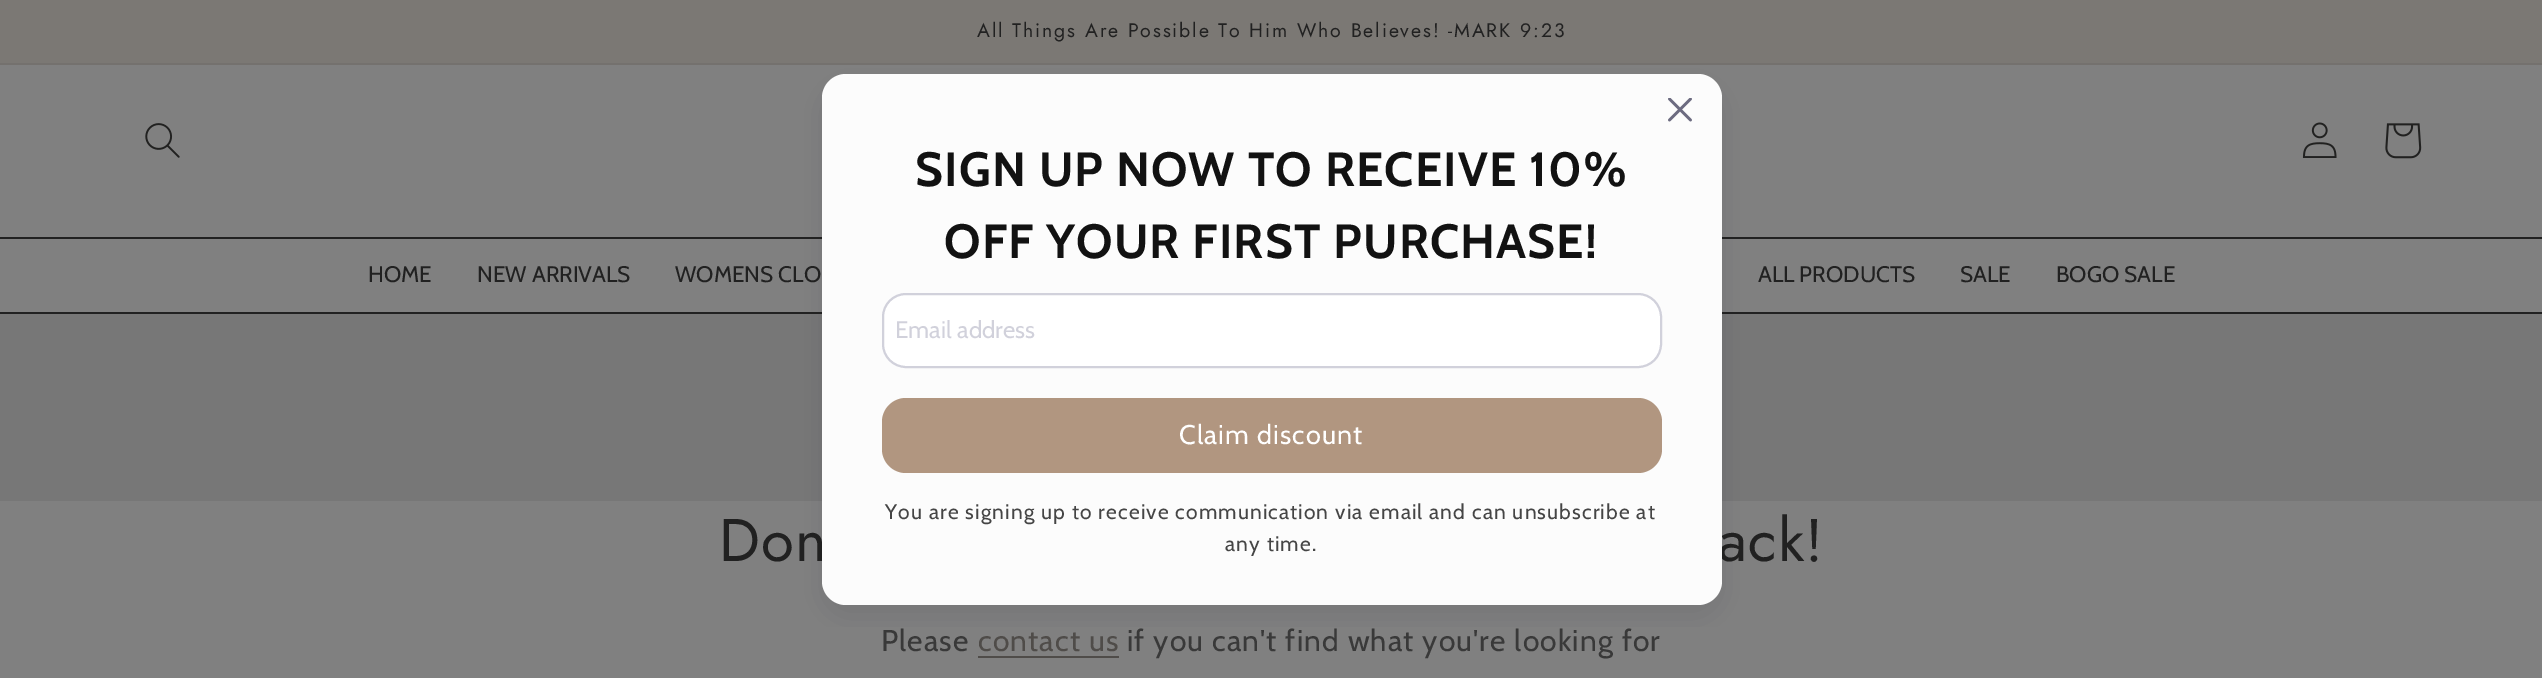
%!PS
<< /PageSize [2542 678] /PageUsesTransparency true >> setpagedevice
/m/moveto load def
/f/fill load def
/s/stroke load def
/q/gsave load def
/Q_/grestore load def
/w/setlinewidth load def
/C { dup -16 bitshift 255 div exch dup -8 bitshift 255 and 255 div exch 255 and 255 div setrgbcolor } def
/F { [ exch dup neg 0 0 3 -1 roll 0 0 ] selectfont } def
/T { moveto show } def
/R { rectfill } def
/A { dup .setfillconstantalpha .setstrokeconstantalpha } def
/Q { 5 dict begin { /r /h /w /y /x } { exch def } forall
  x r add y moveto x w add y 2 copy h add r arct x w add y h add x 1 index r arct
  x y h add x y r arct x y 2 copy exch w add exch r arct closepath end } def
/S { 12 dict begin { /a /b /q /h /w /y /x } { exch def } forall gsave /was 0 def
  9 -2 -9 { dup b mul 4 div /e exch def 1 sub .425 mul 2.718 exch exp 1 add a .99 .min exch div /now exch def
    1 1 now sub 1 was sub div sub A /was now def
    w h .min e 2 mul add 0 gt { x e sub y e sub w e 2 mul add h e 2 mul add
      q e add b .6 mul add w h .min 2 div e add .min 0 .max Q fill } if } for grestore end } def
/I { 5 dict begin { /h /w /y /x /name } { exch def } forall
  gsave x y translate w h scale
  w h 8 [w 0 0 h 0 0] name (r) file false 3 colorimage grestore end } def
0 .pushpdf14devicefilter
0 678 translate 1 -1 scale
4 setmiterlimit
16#808080 C
0 0 2542 678 R
16#7B7874 C
0 0 2542 63 R
16#74716E C
0 63 2542 2 R
/Jost-Regular 19.5 F
16#212121 C
977 37 m 1.88 0 (All Things Are Possible To Him Who Believes! -MARK 9:23) ashow
0 237 2542 2 R
0 312 2542 2 R
16#777777 C
0 314 2542 187 R
16#4F4C49 C
978 656 141 2 R
q
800 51 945 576 rectclip
16#121127 C
822 86 900 531 24 15 .1 S
Q_
/Jost-Regular 60 F
16#212121 C
1718 561 m 1 0 (ack!) ashow
16#FCFCFC C
822 74 900 531 24 Q f
(1.rgb) 1668 98 24 24 I
/Cabin-Bold 48 F
16#121212 C
915 186 m 1.12 0 (SIGN UP NOW TO RECEIVE 10%) ashow
944 258 m 1.12 0 (OFF YOUR FIRST PURCHASE!) ashow
16#FFFFFF C
883 294 778 73 23 Q q f Q_
16#D1D1DB C
2 w
s
/Cabin-Regular 24 F
(Email address) 895 338 T
16#B19680 C
882 398 780 75 24 Q f
/Cabin-Regular 27 F
16#FFFFFF C
1179 444 m 1.12 0 (Claim discount) ashow
/Cabin-Regular 21 F
16#454545 C
885 519 m 1.12 0 (You are signing up to receive communication via email and can unsubscribe at) ashow
1225 551 m 1.12 0 (any time.) ashow
(2.rgb) 145 123 35 35 I
(3.rgb) 2302 122 35 36 I
(4.rgb) 2385 123 37 36 I
/Cabin-Regular 22.5 F
16#212121 C
(HOME) 368 282 T
(NEW ARRIVALS) 477 282 T
(WOMENS CLO) 675 282 T
(ALL PRODUCTS) 1758 282 T
(SALE) 1960 282 T
(BOGO SALE) 2056 282 T
/Jost-Regular 60 F
719 561 m 1 0 (Don) ashow
/Cabin-Regular 30 F
16#393939 C
881 651 m 1.12 0 (Please) ashow
16#4F4C49 C
978 651 m 1.12 0 (contact us) ashow
16#393939 C
1127 651 m 1.12 0 (if you can't find what you're looking for) ashow
.poppdf14devicefilter showpage
